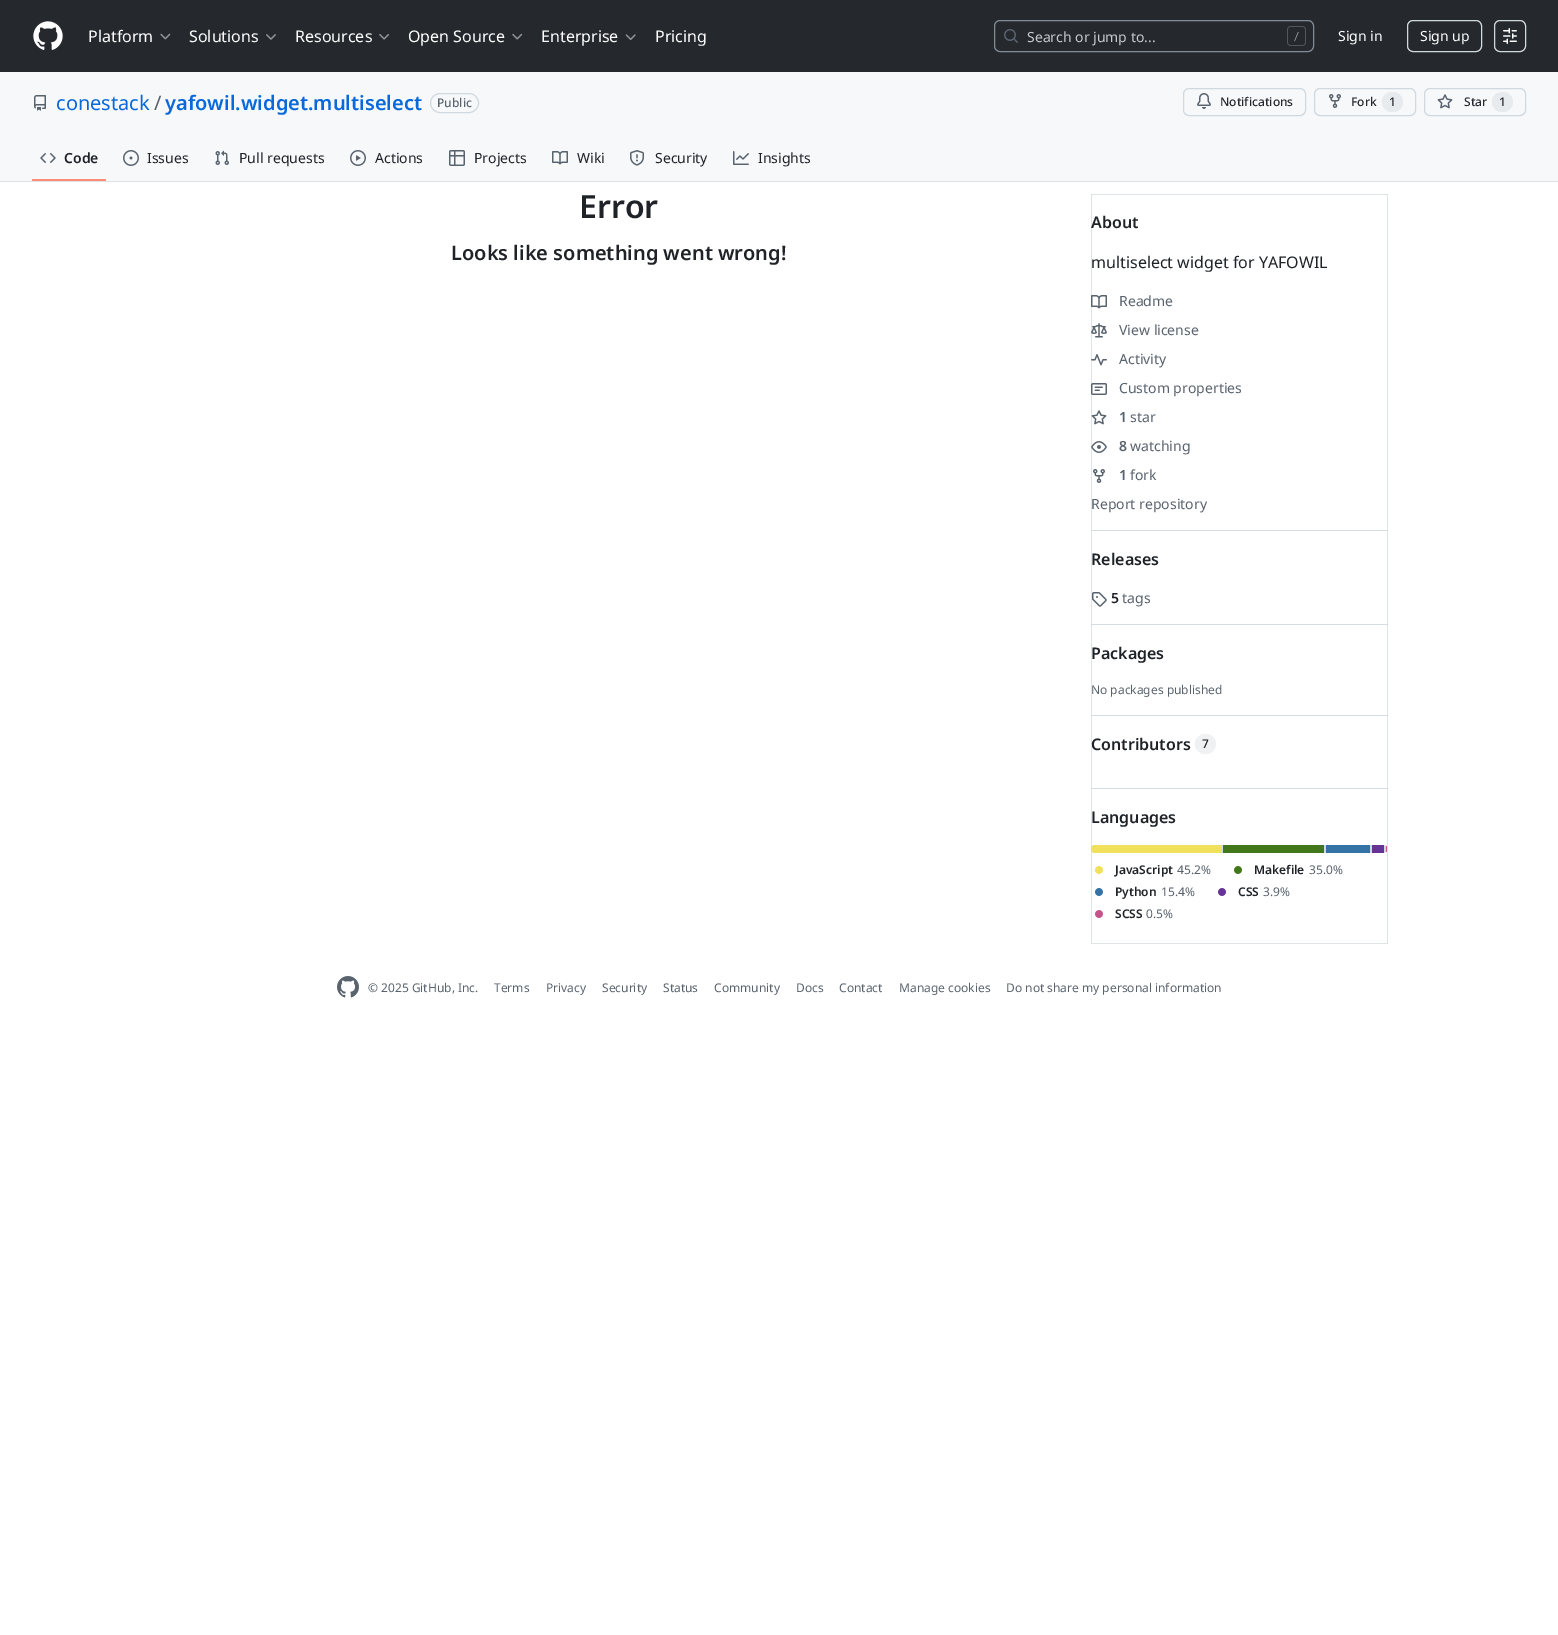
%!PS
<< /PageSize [1558 1635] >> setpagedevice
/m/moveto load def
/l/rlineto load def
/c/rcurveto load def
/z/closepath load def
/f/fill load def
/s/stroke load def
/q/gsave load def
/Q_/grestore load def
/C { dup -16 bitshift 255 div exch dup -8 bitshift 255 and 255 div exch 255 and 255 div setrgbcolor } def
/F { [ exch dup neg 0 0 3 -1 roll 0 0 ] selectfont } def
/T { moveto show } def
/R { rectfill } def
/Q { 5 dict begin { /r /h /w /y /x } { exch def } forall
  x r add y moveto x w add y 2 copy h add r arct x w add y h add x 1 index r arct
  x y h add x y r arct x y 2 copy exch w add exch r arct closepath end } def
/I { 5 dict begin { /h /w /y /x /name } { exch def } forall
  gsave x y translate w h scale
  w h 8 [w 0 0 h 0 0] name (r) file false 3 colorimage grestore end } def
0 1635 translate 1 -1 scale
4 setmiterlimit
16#FFFFFF C
0 0 1558 1635 R
16#DFE4E9 C
1091 194 1 750 R
1387 194 1 595 R
1091 943 297 1 R
16#D5DCE3 C
1091 943 1 1 R
16#DFE4E9 C
1387 788 1 156 R
16#D5DCE3 C
1387 943 1 1 R
16#25292E C
0 0 1558 72 R
(1.rgb) 33 21 30 29 I
/NotoSans-Regular 16 F
16#FFFFFF C
(Platform) 88 42 T
(2.rgb) 160 33 11 7 I
(Solutions) 189 42 T
(3.rgb) 266 34 10 6 I
(Resources) 295 42 T
(4.rgb) 379 34 10 6 I
(Open Source) 408 42 T
(5.rgb) 512 33 11 7 I
(Enterprise) 541 42 T
(6.rgb) 625 34 11 6 I
(Pricing) 655 42 T
16#818B98 C
994.5 20.5 319 31 5.5 Q s
(7.rgb) 1004 29 14 14 I
/NotoSans-Regular 14 F
16#C9CACB C
(Search or jump to...) 1027 42 T
(8.rgb) 1287 26 19 20 I
16#FFFFFF C
(Sign in) 1338 41 T
16#D1D9E0 C
1407.5 20.5 74 31 5.5 Q s
16#FFFFFF C
(Sign up) 1420 41 T
16#D1D9E0 C
1494.5 20.5 31 31 5.5 Q s
(9.rgb) 1503 28 14 16 I
16#F6F8FA C
0 72 1558 109 R
(10.rgb) 34 95 12 16 I
/NotoSans-Regular 20 F
16#0969DA C
(conestack) 56 110 T
16#59636E C
(/) 154 110 T
/NotoSans-SemiBold 20 F
16#0969DA C
(yafowil.widget.multiselect) 165 110 T
16#D1D9E0 C
430.5 93.5 48 19 9.5 Q s
/NotoSans-Medium 12 F
16#59636E C
(Public) 437 107 T
16#D1D9E0 C
1183.5 88.5 122 27 5.5 Q s
(11.rgb) 1197 93 14 16 I
16#25292E C
(Notifications) 1220 106 T
16#D1D9E0 C
1314.5 88.5 101 27 5.5 Q s
(12.rgb) 1329 94 12 14 I
16#25292E C
(Fork) 1351 106 T
16#E8EBEE C
1382 92 21 20 10 Q f
16#25292E C
(1) 1389 106 T
16#D1D9E0 C
1424.5 88.5 101 27 5.5 Q s
(13.rgb) 1437 94 16 15 I
16#25292E C
(Star) 1464 106 T
16#E8EBEE C
1492 92 21 20 10 Q f
16#25292E C
(1) 1499 106 T
16#DCE2E8 C
0 181 1558 1 R
(14.rgb) 40 153 16 10 I
/NotoSans-SemiBold 14 F
16#1F2328 C
(Code) 64 163 T
16#FD8C73 C
32 179 74 2 1 Q f
(15.rgb) 123 150 16 16 I
/NotoSans-Regular 14 F
16#1F2328 C
(Issues) 147 163 T
(16.rgb) 215 150 14 15 I
(Pull requests) 239 163 T
(17.rgb) 350 150 16 16 I
(Actions) 375 163 T
(18.rgb) 449 150 16 16 I
(Projects) 474 163 T
(19.rgb) 552 151 16 14 I
(Wiki) 577 163 T
(20.rgb) 630 150 14 16 I
(Security) 655 163 T
(21.rgb) 733 151 16 14 I
(Insights) 758 163 T
/NotoSans-SemiBold 32 F
(Error) 579 218 T
/NotoSans-SemiBold 20 F
(Looks like something went wrong!) 451 260 T
16#DFE4E9 C
1091 194 297 1 R
16#D5DCE3 C
1091 194 1 1 R
1387 194 1 1 R
/NotoSans-SemiBold 16 F
16#1F2328 C
(About) 1091 228 T
/NotoSans-Regular 16 F
(multiselect widget for YAFOWIL) 1091 268 T
(22.rgb) 1091 295 16 14 I
/NotoSans-Regular 14 F
16#59636E C
(Readme) 1119 306 T
(23.rgb) 1091 323 16 15 I
(View license) 1119 335 T
(24.rgb) 1091 354 16 12 I
(Activity) 1119 364 T
(25.rgb) 1091 383 16 12 I
(Custom properties) 1119 393 T
(26.rgb) 1091 410 16 15 I
/NotoSans-SemiBold 14 F
(1) 1119 422 T
/NotoSans-Regular 14 F
(star) 1130 422 T
(27.rgb) 1091 441 16 12 I
/NotoSans-SemiBold 14 F
(8) 1119 451 T
/NotoSans-Regular 14 F
(watching) 1130 451 T
(28.rgb) 1093 469 12 14 I
/NotoSans-SemiBold 14 F
(1) 1119 480 T
/NotoSans-Regular 14 F
(fork) 1130 480 T
(Report repository) 1091 509 T
16#D5DCE3 C
1091 530 297 1 R
16#D1D9E0 C
1091 530 1 1 R
1387 530 1 1 R
/NotoSans-SemiBold 16 F
16#1F2328 C
(Releases) 1091 565 T
(29.rgb) 1092 592 15 15 I
/NotoSans-SemiBold 14 F
(5) 1111 603 T
/NotoSans-Regular 14 F
16#59636E C
(tags) 1122 603 T
16#D5DCE3 C
1091 624 297 1 R
16#D1D9E0 C
1091 624 1 1 R
1387 624 1 1 R
/NotoSans-SemiBold 16 F
16#1F2328 C
(Packages) 1091 659 T
/NotoSans-Regular 12 F
16#59636E C
(No packages published) 1091 694 T
16#D5DCE3 C
1091 715 297 1 R
16#D1D9E0 C
1091 715 1 1 R
1387 715 1 1 R
/NotoSans-SemiBold 16 F
16#1F2328 C
(Contributors) 1091 750 T
16#F0F1F3 C
1195 734 21 20 10 Q f
/NotoSans-Medium 12 F
16#1F2328 C
(7) 1202 748 T
16#D5DCE3 C
1091 788 297 1 R
16#D1D9E0 C
1091 788 1 1 R
1387 788 1 1 R
/NotoSans-SemiBold 16 F
16#1F2328 C
(Languages) 1091 823 T
16#D1D9E0 C
1091 845 296 8 4 Q f
16#F1E05A C
1095 845 m 126 0 l 0 8 l -126 0 l -2 0 -4 -2 -4 -4 c 0 -2 2 -4 4 -4 c z f
16#427819 C
1223 845 101 8 R
16#3572A5 C
1326 845 44 8 R
16#663399 C
1372 845 12 8 R
q
1091 845 296 8 4 Q clip newpath
16#C6538C C
1386 845 1 8 R
Q_
(30.rgb) 1095 866 8 8 I
/NotoSans-SemiBold 12 F
16#1F2328 C
(JavaScript) 1115 874 T
/NotoSans-Regular 12 F
16#59636E C
(45.2%) 1177 874 T
(31.rgb) 1234 866 8 8 I
/NotoSans-SemiBold 12 F
16#1F2328 C
(Makefile) 1254 874 T
/NotoSans-Regular 12 F
16#59636E C
(35.0%) 1309 874 T
(32.rgb) 1095 888 8 8 I
/NotoSans-SemiBold 12 F
16#1F2328 C
(Python) 1115 896 T
/NotoSans-Regular 12 F
16#59636E C
(15.4%) 1161 896 T
(33.rgb) 1218 888 8 8 I
/NotoSans-SemiBold 12 F
16#1F2328 C
(CSS) 1238 896 T
/NotoSans-Regular 12 F
16#59636E C
(3.9%) 1263 896 T
(34.rgb) 1095 910 8 8 I
/NotoSans-SemiBold 12 F
16#1F2328 C
(SCSS) 1115 918 T
/NotoSans-Regular 12 F
16#59636E C
(0.5%) 1146 918 T
(35.rgb) 337 976 22 22 I
(© 2025 GitHub, Inc.) 368 992 T
(Terms) 494 992 T
(Privacy) 546 992 T
(Security) 602 992 T
(Status) 663 992 T
(Community) 714 992 T
(Docs) 796 992 T
(Contact) 839 992 T
(Manage cookies) 899 992 T
(Do not share my personal information) 1006 992 T
showpage
